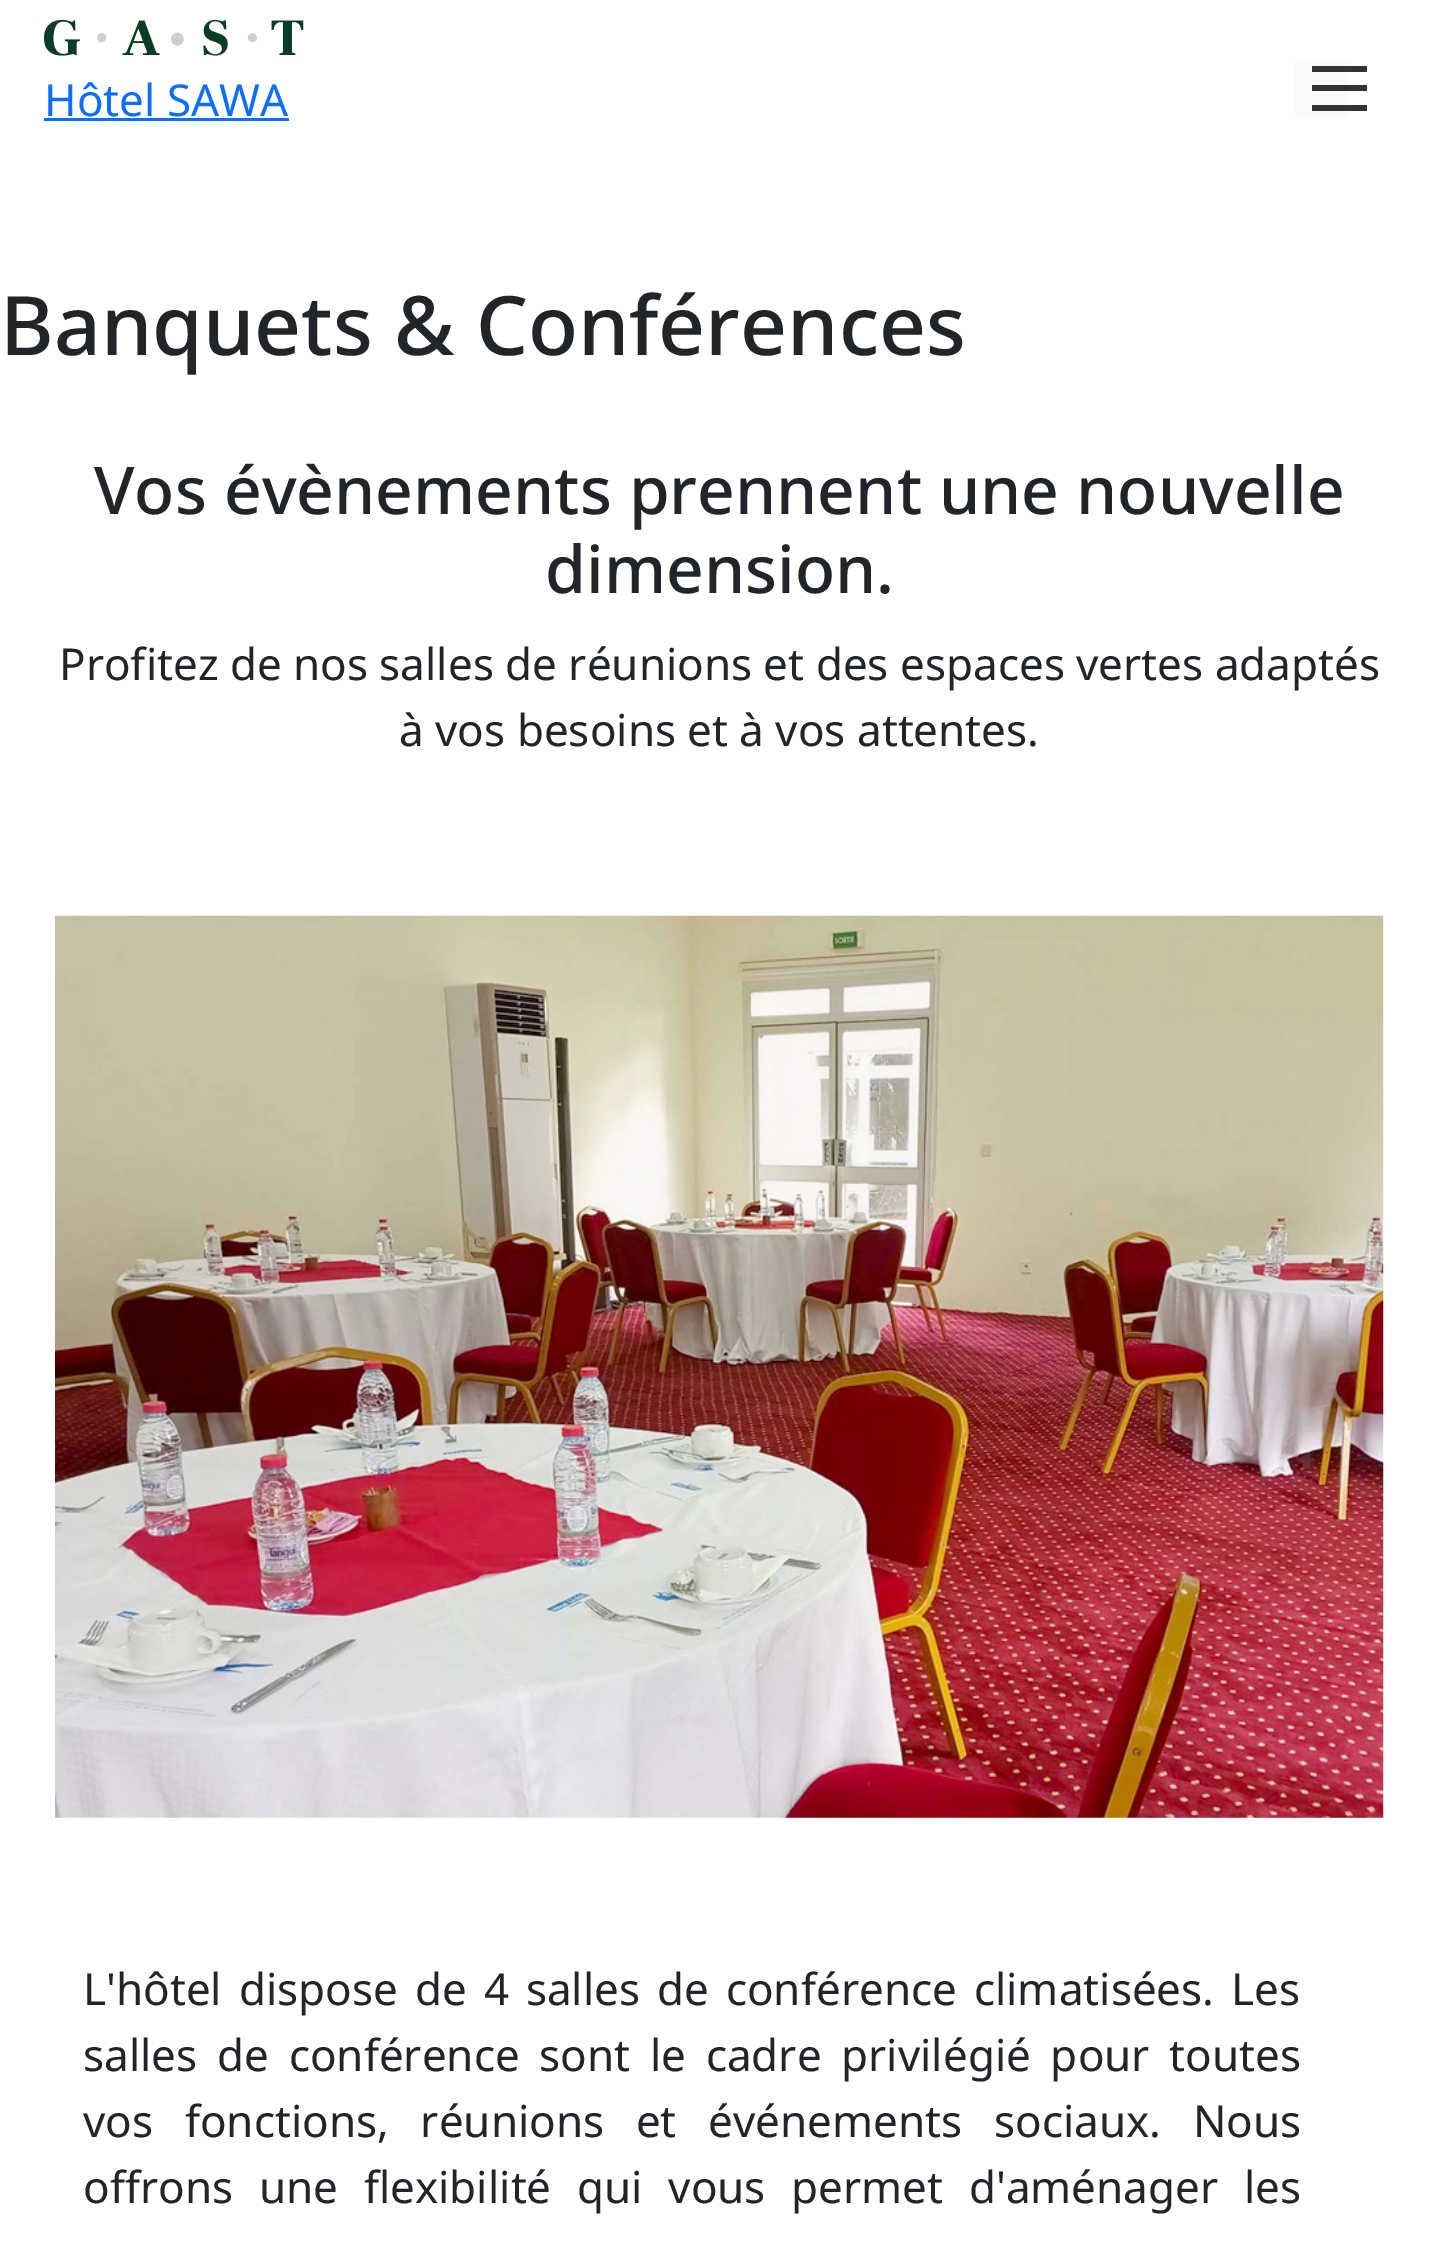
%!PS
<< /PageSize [1437 2253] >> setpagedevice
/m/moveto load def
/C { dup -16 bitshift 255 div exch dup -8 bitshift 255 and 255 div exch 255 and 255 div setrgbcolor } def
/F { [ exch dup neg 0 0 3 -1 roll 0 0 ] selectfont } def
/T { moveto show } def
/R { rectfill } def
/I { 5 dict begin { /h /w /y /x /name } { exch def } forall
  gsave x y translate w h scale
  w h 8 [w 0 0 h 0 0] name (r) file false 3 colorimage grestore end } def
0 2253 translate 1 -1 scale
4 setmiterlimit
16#FFFFFF C
0 0 1437 2253 R
(1.rgb) 44 19 260 37 I
/NotoSans-Regular 44 F
16#0D6EFD C
(Hôtel SAWA) 44 116 T
44 118 245 3 R
16#FAFAFA C
1295 61 55 55 R
16#333333 C
1312 66 55 6 R
1312 85 55 6 R
1312 105 55 6 R
/NotoSans-Medium 82 F
16#212529 C
(Banquets & Conférences) 0 355 T
/NotoSans-Medium 65.8 F
(Vos évènements prennent une nouvelle) 94 514 T
(dimension.) 545 593 T
/NotoSans-Regular 44 F
(Profitez de nos salles de réunions et des espaces vertes adaptés) 59 680 T
(à vos besoins et à vos attentes.) 399 746 T
(2.rgb) 55 915 1329 903 I
83 2005 m 5.5 0 32 (L'hôtel dispose de 4 salles de conférence climatisées. Les) widthshow
83 2071 m 8.25 0 32 (salles de conférence sont le cadre privilégié pour toutes) widthshow
83 2137 m 20.25 0 32 (vos fonctions, réunions et événements sociaux. Nous) widthshow
83 2203 m 14.25 0 32 (offrons une flexibilité qui vous permet d'aménager les) widthshow
showpage
